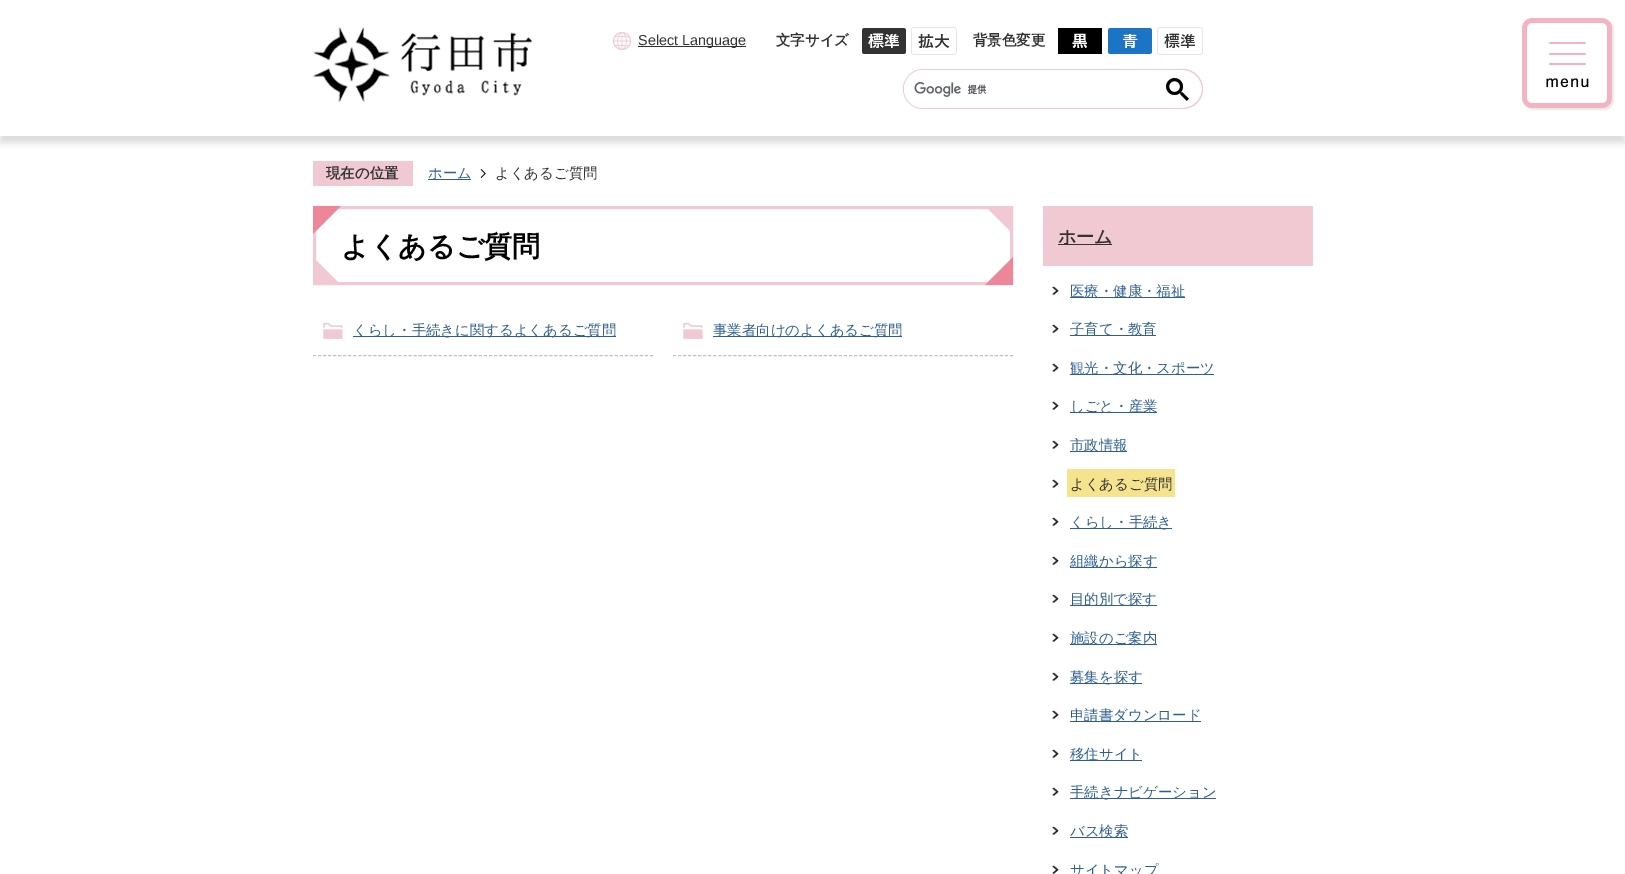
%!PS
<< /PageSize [1625 874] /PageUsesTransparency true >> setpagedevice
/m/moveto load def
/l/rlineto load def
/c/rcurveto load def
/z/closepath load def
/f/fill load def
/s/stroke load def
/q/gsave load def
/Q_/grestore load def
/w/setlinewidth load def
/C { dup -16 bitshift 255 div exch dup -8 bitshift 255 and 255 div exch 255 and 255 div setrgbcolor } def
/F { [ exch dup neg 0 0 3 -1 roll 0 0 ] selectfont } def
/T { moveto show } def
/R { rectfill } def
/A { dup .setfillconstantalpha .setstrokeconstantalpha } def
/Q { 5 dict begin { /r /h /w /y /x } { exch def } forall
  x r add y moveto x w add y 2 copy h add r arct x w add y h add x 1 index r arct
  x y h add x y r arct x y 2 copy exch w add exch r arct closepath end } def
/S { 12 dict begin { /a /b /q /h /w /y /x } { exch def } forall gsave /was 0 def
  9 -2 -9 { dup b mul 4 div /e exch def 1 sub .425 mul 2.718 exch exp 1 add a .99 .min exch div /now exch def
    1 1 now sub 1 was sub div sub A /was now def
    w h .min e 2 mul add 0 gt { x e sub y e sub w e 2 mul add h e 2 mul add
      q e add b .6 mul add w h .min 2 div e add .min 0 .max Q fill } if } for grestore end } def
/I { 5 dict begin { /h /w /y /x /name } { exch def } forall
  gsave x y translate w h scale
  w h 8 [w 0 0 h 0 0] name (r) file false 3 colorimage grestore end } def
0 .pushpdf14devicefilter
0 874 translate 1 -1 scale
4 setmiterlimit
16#FFFFFF C
0 0 1625 874 R
q
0 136 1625 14 rectclip
16#DBDBDB C
0 7 1625 136 0 3.5 1 S
Q_
(1.rgb) 313 27 219 75 I
(2.rgb) 613 32 18 18 I
16#333333 C
638 46 108 1 R
/LiberationSans-Regular 14.4 F
(Select Language) 638 45 T
/WenQuanYiZenHei-Bold 14.4 F
(文字サイズ) 776 45 T
(3.rgb) 862 28 44 26 I
(4.rgb) 911 27 46 28 I
(背景色変更) 973 45 T
(5.rgb) 1058 28 44 26 I
(6.rgb) 1108 28 44 26 I
(7.rgb) 1157 27 46 28 I
(8.rgb) 1522 18 93 93 I
16#F0C9D3 C
923 69 m 230 0 l 0 40 l -230 0 l -11 0 -20 -9 -20 -20 c 0 -11 9 -20 20 -20 c z 923 70 m 230 0 l 0 38 l -230 0 l -10 0 -19 -9 -19 -19 c 0 -10 9 -19 19 -19 c z eofill
16#FFFFFF C
923 70 m 230 0 l 0 38 l -230 0 l -10.5 0 -19 -8.5 -19 -19 c 0 -10.5 8.5 -19 19 -19 c z f
(9.rgb) 914 82 73 15 I
16#F0C9D3 C
1153 69 m 30 0 l 11 0 20 9 20 20 c 0 11 -9 20 -20 20 c -30 0 l z 1153 70 m 30 0 l 10 0 19 9 19 19 c 0 10 -9 19 -19 19 c -30 0 l z eofill
(10.rgb) 1166 78 23 23 I
313 161 100 25 R
16#333333 C
(現在の位置) 326 178 T
16#2D5F92 C
428 179 43 1 R
/WenQuanYiZenHei-Medium 14.4 F
(ホーム) 428 178 T
(11.rgb) 480 169 6 9 I
16#333333 C
(よくあるご質問) 495 178 T
16#F0C9D3 C
3 w
314.5 207.5 697 76 rectstroke
16#EE869A C
313 206 m 28 0 l -28 28 l z f
16#F0C9D3 C
985 206 m 28 0 l 0 28 l z f
/WenQuanYiZenHei-Bold 28 F
16#000000 C
(よくあるご質問) 341 256 T
16#EE869A C
1013 285 m -28 0 l 28 -28 l z f
16#F0C9D3 C
341 285 m -28 0 l 0 -28 l z f
(12.rgb) 323 323 20 16 I
16#BFBFBF C
1 w
[3 2.03] 0 setdash
313 355.5 m 340 0 l s
16#2D5F92 C
353 336 263 1 R
/WenQuanYiZenHei-Medium 14.4 F
(くらし・手続きに関するよくあるご質問) 353 335 T
(12.rgb) 683 323 20 16 I
16#BFBFBF C
673 355.5 m 340 0 l s
16#2D5F92 C
713 336 189 1 R
(事業者向けのよくあるご質問) 713 335 T
16#F0C9D3 C
1043 206 270 60 R
16#333333 C
1058 244 54 1 R
/WenQuanYiZenHei-Bold 18 F
(ホーム) 1058 243 T
(13.rgb) 1052 286 7 9 I
16#2D5F92 C
1070 297 115 1 R
/WenQuanYiZenHei-Medium 14.4 F
(医療・健康・福祉) 1070 296 T
(13.rgb) 1052 324 7 9 I
1070 335 86 1 R
(子育て・教育) 1070 334 T
(13.rgb) 1052 363 7 9 I
1070 374 144 1 R
(観光・文化・スポーツ) 1070 373 T
(13.rgb) 1052 401 7 9 I
1070 412 87 1 R
(しごと・産業) 1070 411 T
(13.rgb) 1052 440 7 9 I
1070 451 57 1 R
(市政情報) 1070 450 T
(13.rgb) 1052 479 7 9 I
16#F6E38D C
1067 469 108 28 R
16#333333 C
(よくあるご質問) 1070 489 T
(13.rgb) 1052 517 7 9 I
16#2D5F92 C
1070 528 102 1 R
(くらし・手続き) 1070 527 T
(13.rgb) 1052 556 7 9 I
1070 567 87 1 R
(組織から探す) 1070 566 T
(13.rgb) 1052 594 7 9 I
1070 605 87 1 R
(目的別で探す) 1070 604 T
(13.rgb) 1052 633 7 9 I
1070 644 87 1 R
(施設のご案内) 1070 643 T
(13.rgb) 1052 672 7 9 I
1070 683 72 1 R
(募集を探す) 1070 682 T
(13.rgb) 1052 710 7 9 I
1070 721 131 1 R
(申請書ダウンロード) 1070 720 T
(13.rgb) 1052 749 7 9 I
1070 760 72 1 R
(移住サイト) 1070 759 T
(13.rgb) 1052 787 7 9 I
1070 798 146 1 R
(手続きナビゲーション) 1070 797 T
(13.rgb) 1052 826 7 9 I
1070 837 58 1 R
(バス検索) 1070 836 T
(13.rgb) 1052 865 7 9 I
(サイトマップ) 1070 875 T
.poppdf14devicefilter showpage
